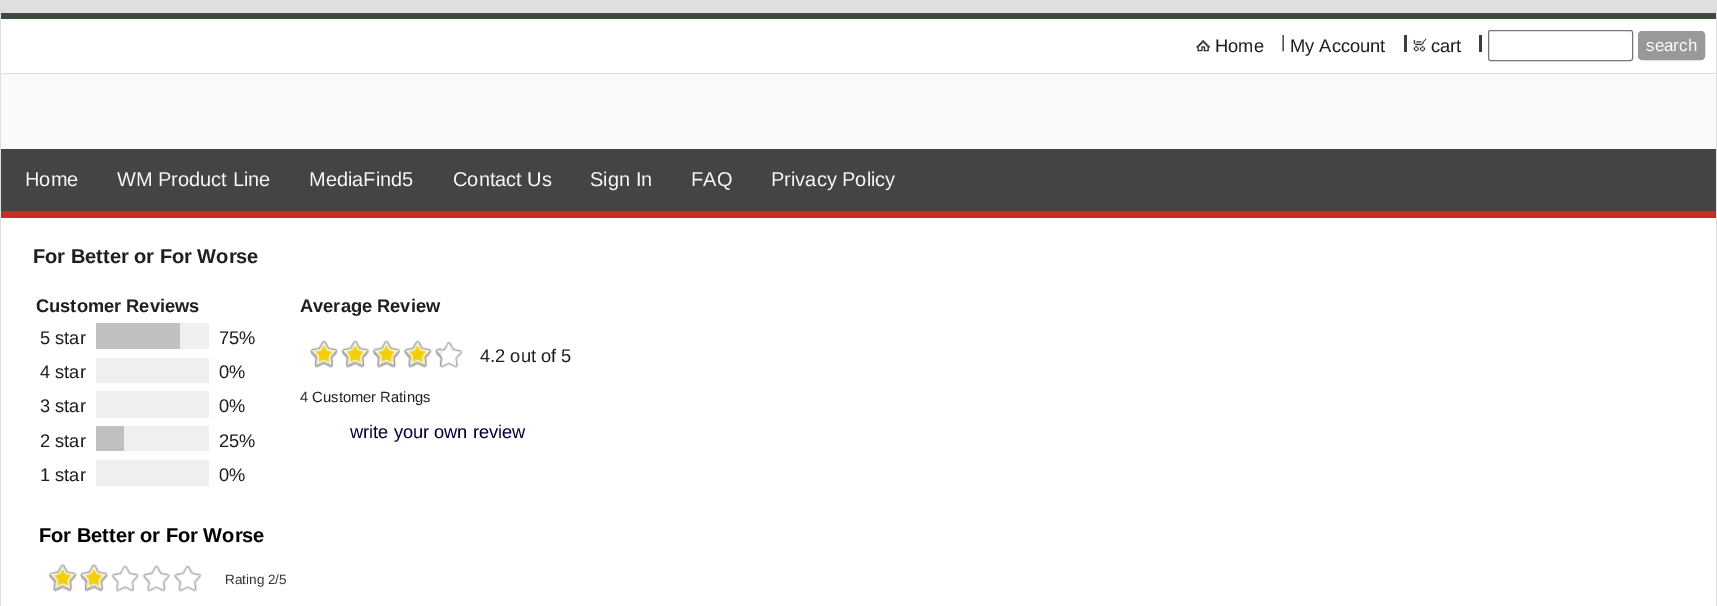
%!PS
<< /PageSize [1717 606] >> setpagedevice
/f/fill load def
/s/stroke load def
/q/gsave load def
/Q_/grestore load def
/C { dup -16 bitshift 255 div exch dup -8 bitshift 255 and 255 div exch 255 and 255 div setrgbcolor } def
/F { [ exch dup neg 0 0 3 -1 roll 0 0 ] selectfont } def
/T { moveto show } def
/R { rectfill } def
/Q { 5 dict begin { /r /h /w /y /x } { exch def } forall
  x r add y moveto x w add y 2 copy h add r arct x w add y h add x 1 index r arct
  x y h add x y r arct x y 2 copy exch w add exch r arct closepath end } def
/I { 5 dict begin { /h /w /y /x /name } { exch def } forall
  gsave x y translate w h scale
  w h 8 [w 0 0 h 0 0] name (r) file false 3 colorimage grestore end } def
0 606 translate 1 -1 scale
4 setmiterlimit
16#DFDFDF C
0 0 1717 606 R
16#FFFFFF C
1 19 1715 587 R
16#3E4A3D C
1 13 1715 6 R
(1.rgb) 1196 40 14 12 I
/LiberationSans-Regular 18.25 F
16#1F1F1F C
(Home) 1215 52 T
(2.rgb) 1282 35 2 17 I
(My Account) 1290 52 T
16#3D3D3D C
1404 35 3 17 R
(3.rgb) 1413 38 14 14 I
16#1F1F1F C
(cart) 1431 52 T
16#3D3D3D C
1479 35 3 17 R
16#767676 C
1488.5 30.5 144 30 2 Q s
16#999999 C
1638.5 31.5 66 28 3.5 Q q f Q_
s
/LiberationSans-Regular 17 F
16#FFFFFF C
(search) 1646 51 T
16#FAFAFA C
1 74 1715 75 R
16#DFDFDF C
1 73 1715 1 R
16#444444 C
1 149 1715 62 R
16#C62E28 C
1 211 1715 7 R
/LiberationSans-Regular 20 F
16#F7F7F5 C
(Home) 25 186 T
(WM Product Line) 117 186 T
(MediaFind5) 309 186 T
(Contact Us) 453 186 T
(Sign In) 590 186 T
(FAQ) 691 186 T
(Privacy Policy) 771 186 T
/LiberationSans-Bold 20 F
16#1F1F1F C
(For Better or For Worse) 33 263 T
/LiberationSans-Bold 18.25 F
(Customer Reviews) 36 312 T
/LiberationSans-Regular 18.25 F
(5 star) 40 344 T
16#EFEFEF C
180 323 29 26 R
16#C0C0C0 C
96 323 84 26 R
16#1F1F1F C
(75%) 219 344 T
(4 star) 40 378 T
16#EFEFEF C
96 358 113 25 R
16#1F1F1F C
(0%) 219 378 T
(3 star) 40 412 T
16#EFEFEF C
96 391 113 27 R
16#1F1F1F C
(0%) 219 412 T
(2 star) 40 447 T
16#EFEFEF C
124 426 85 25 R
16#C0C0C0 C
96 426 28 25 R
16#1F1F1F C
(25%) 219 447 T
(1 star) 40 481 T
16#EFEFEF C
96 460 113 26 R
16#1F1F1F C
(0%) 219 481 T
/LiberationSans-Bold 18.25 F
(Average Review) 300 312 T
(4.rgb) 310 341 153 31 I
(5.rgb) 310 340 132 27 I
/LiberationSans-Regular 18.25 F
(4.2 out of 5) 480 362 T
/LiberationSans-Regular 14.75 F
(4 Customer Ratings) 300 402 T
/LiberationSans-Regular 18.25 F
16#000033 C
(write your own review) 350 438 T
/LiberationSans-Bold 20 F
16#000000 C
(For Better or For Worse) 39 542 T
(6.rgb) 48 565 154 27 I
(7.rgb) 48 564 60 26 I
/LiberationSans-Regular 13.5 F
16#333333 C
(Rating 2/5) 225 584 T
showpage
